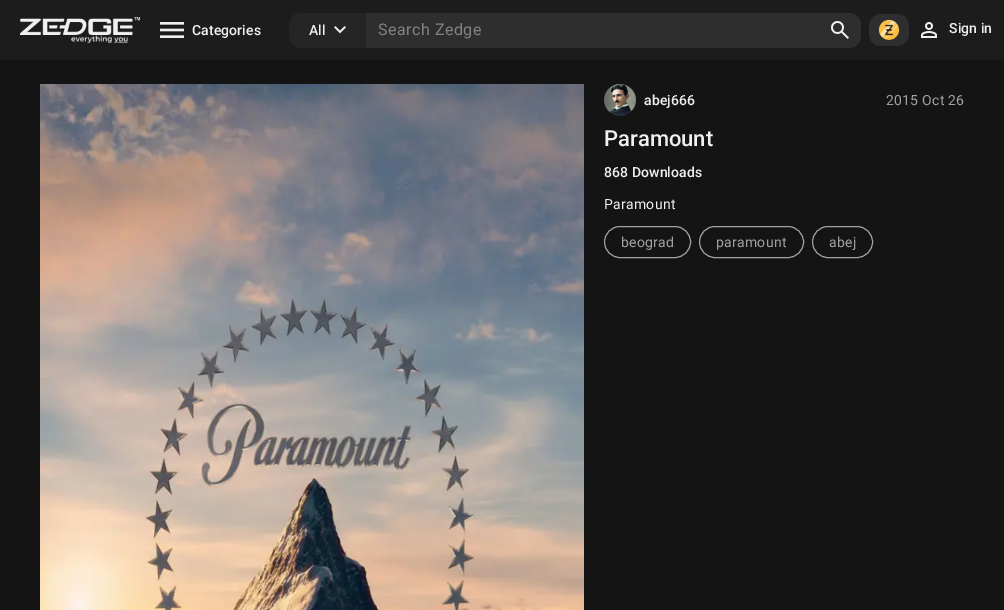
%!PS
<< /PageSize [1004 610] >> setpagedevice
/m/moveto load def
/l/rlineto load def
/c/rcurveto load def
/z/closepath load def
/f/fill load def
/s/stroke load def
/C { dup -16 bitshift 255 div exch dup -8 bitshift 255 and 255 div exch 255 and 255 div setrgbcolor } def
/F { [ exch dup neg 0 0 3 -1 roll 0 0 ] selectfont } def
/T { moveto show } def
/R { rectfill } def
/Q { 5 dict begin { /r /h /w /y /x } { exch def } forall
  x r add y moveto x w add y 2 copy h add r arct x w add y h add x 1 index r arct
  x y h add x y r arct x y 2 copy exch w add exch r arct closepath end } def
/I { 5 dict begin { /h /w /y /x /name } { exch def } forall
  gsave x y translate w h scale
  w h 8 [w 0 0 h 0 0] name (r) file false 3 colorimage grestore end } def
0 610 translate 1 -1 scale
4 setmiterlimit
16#141414 C
0 0 1004 610 R
16#1C1C1C C
0 0 1004 60 R
(1.rgb) 20 17 120 18 I
(2.rgb) 71 35 57 8 I
(3.rgb) 160 22 24 16 I
/Roboto-Medium 14 F
16#F0F0F0 C
192 35 m .1 0 (Categories) ashow
16#252525 C
301 13 m 65 0 l 0 35 l -65 0 l -6.5 0 -12 -5.5 -12 -12 c 0 -11 l 0 -6.5 5.5 -12 12 -12 c z f
16#F0F0F0 C
309 35 m .1 0 (All) ashow
(4.rgb) 334 26 12 8 I
16#2E2E2E C
366 13 m 483 0 l 6.5 0 12 5.5 12 12 c 0 11 l 0 6.5 -5.5 12 -12 12 c -483 0 l z f
/Roboto-Regular 16 F
16#828282 C
378 35 m .5 0 (Search Zedge) ashow
(5.rgb) 831 21 18 18 I
16#2E2E2E C
869 14 40 32 12 Q f
(6.rgb) 878 19 22 21 I
(7.rgb) 921 22 16 16 I
/Roboto-Medium 14 F
16#F0F0F0 C
949 33 m .1 0 (Sign in) ashow
(8.rgb) 40 84 544 526 I
(9.rgb) 604 84 32 32 I
644 105 m .1 0 (abej666) ashow
/Roboto-Regular 14 F
16#A1A1A1 C
886 105 m .25 0 (2015 Oct 26) ashow
/Roboto-Medium 22 F
16#F0F0F0 C
(Paramount) 604 146 T
/Roboto-Medium 14 F
604 177 m .1 0 (868 Downloads) ashow
/Roboto-Regular 14 F
604 209 m .25 0 (Paramount) ashow
16#A1A1A1 C
604.5 226.5 86 31 15.5 Q s
621 247 m .25 0 (beograd) ashow
699.5 226.5 104 31 15.5 Q s
716 247 m .25 0 (paramount) ashow
812.5 226.5 60 31 15.5 Q s
829 247 m .25 0 (abej) ashow
showpage
